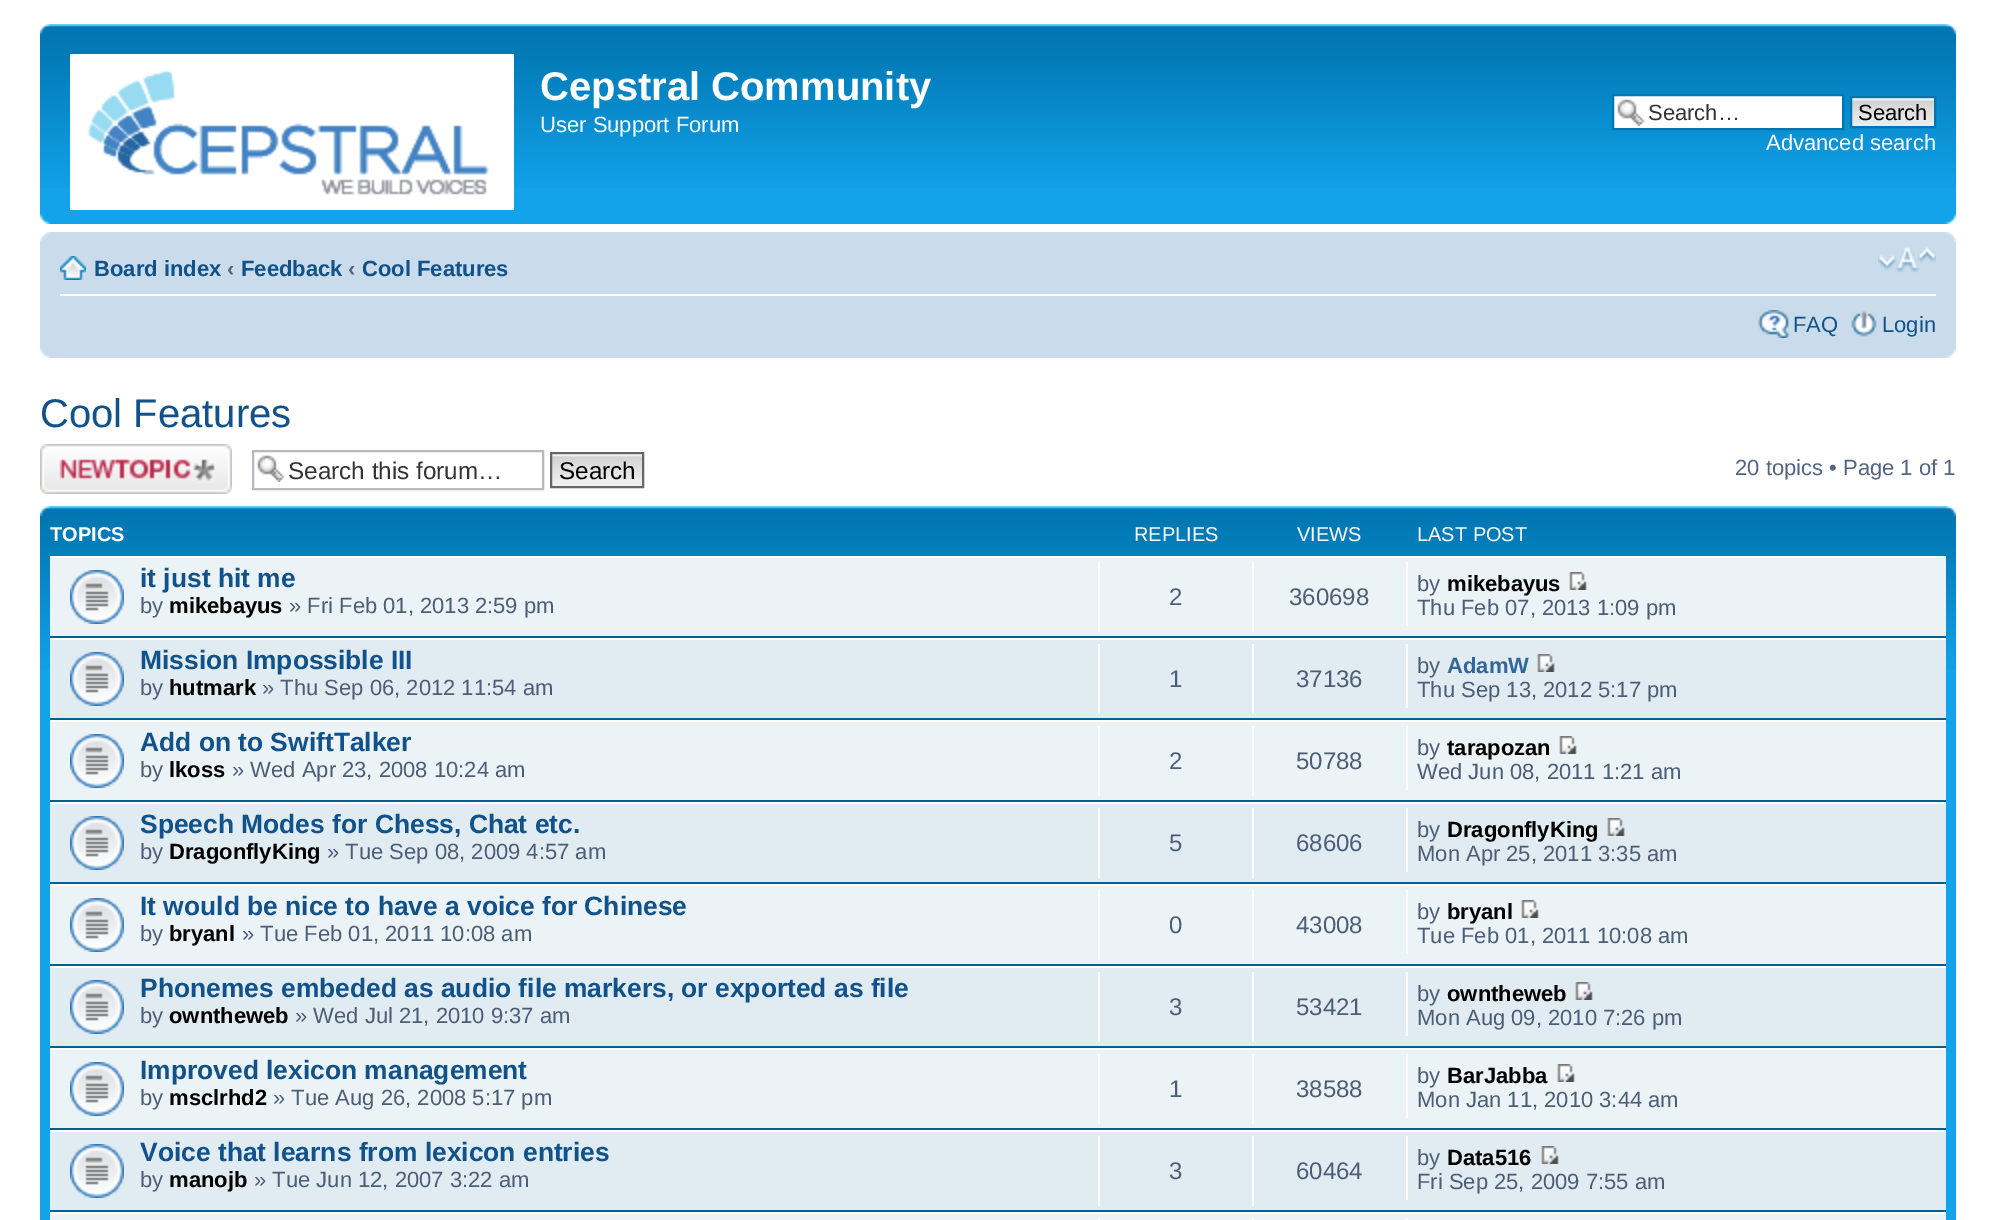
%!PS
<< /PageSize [1995 1220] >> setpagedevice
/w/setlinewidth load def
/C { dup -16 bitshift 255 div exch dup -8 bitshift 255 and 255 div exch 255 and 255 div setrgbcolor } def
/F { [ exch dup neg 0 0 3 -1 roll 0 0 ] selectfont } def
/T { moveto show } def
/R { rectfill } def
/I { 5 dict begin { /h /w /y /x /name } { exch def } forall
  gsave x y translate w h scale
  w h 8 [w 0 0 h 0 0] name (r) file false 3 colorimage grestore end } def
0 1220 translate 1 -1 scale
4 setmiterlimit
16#FFFFFF C
0 0 1995 1220 R
16#12A3EB C
40 188 1916 36 R
(1.rgb) 40 24 1916 164 I
(2.rgb) 40 24 11 10 I
(3.rgb) 1945 24 11 10 I
(4.rgb) 70 54 444 156 I
/LiberationSans-Bold 40 F
16#FFFFFF C
(Cepstral Community) 540 100 T
/LiberationSans-Regular 22 F
(User Support Forum) 540 132 T
1614 96 228 32 R
(5.rgb) 1617 99 28 27 I
16#0075B0 C
2 w
1613 95 230 34 rectstroke
16#333333 C
(Search…) 1648 120 T
(6.rgb) 1852 98 82 28 I
16#0075B0 C
1851 97 84 30 rectstroke
16#000000 C
(Search) 1858 120 T
16#FFFFFF C
(Advanced search) 1766 150 T
(7.rgb) 40 214 11 10 I
(8.rgb) 1945 214 11 10 I
16#CADCEB C
40 232 1916 126 R
(9.rgb) 40 232 11 10 I
(10.rgb) 1945 232 11 10 I
16#FFFFFF C
60 294 1876 2 R
(11.rgb) 60 256 26 24 I
/LiberationSans-Bold 22 F
16#105289 C
(Board index) 94 276 T
16#536482 C
(‹) 227 276 T
16#105289 C
(Feedback) 241 276 T
16#536482 C
(‹) 348 276 T
16#105289 C
(Cool Features) 362 276 T
(12.rgb) 1878 247 58 26 I
(13.rgb) 1758 310 32 28 I
/LiberationSans-Regular 22 F
(FAQ) 1793 332 T
(14.rgb) 1851 311 26 26 I
(Login) 1882 332 T
(15.rgb) 40 348 10 10 I
(16.rgb) 1946 348 10 10 I
/LiberationSans-Regular 40 F
(Cool Features) 40 427 T
(17.rgb) 40 444 192 50 I
(5.rgb) 257 455 28 27 I
16#B4BAC0 C
253 451 290 38 rectstroke
/LiberationSans-Regular 24.25 F
16#333333 C
(Search this forum…) 288 479 T
(18.rgb) 552 454 90 32 I
16#666666 C
551 453 92 34 rectstroke
16#000000 C
(Search) 559 479 T
/LiberationSans-Regular 22 F
16#536482 C
(20 topics • Page 1 of 1) 1735 475 T
16#12A3EB C
40 670 1916 550 R
(1.rgb) 40 506 1916 164 I
(2.rgb) 40 506 11 10 I
(3.rgb) 1945 506 11 10 I
/LiberationSans-Bold 20 F
16#FFFFFF C
(TOPICS) 50 541 T
/LiberationSans-Regular 20 F
(REPLIES) 1134 541 T
(VIEWS) 1297 541 T
(LAST POST) 1417 541 T
16#ECF3F7 C
50 558 1896 78 R
16#FFFFFF C
50 556 1896 2 R
16#00608F C
50 636 1896 2 R
(19.rgb) 70 570 54 54 I
/LiberationSans-Bold 26.4 F
16#105289 C
(it just hit me) 140 587 T
/LiberationSans-Regular 22 F
16#4C5D77 C
(by) 140 613 T
/LiberationSans-Bold 22 F
16#000000 C
(mikebayus) 169 613 T
/LiberationSans-Regular 22 F
16#4C5D77 C
(» Fri Feb 01, 2013 2:59 pm) 289 613 T
16#FFFFFF C
1098 562 2 70 R
/LiberationSans-Regular 24 F
16#4C5D77 C
(2) 1169 605 T
16#FFFFFF C
1252 562 2 70 R
16#4C5D77 C
(360698) 1289 605 T
16#FFFFFF C
1406 562 2 64 R
/LiberationSans-Regular 22 F
16#4C5D77 C
(by) 1417 591 T
/LiberationSans-Bold 22 F
16#000000 C
(mikebayus) 1447 591 T
(20.rgb) 1569 572 18 18 I
/LiberationSans-Regular 22 F
16#4C5D77 C
(Thu Feb 07, 2013 1:09 pm) 1417 615 T
16#E1EBF2 C
50 640 1896 78 R
16#FFFFFF C
50 638 1896 2 R
16#00608F C
50 718 1896 2 R
(21.rgb) 70 652 54 54 I
/LiberationSans-Bold 26.4 F
16#105289 C
(Mission Impossible III) 140 669 T
/LiberationSans-Regular 22 F
16#4C5D77 C
(by) 140 695 T
/LiberationSans-Bold 22 F
16#000000 C
(hutmark) 169 695 T
/LiberationSans-Regular 22 F
16#4C5D77 C
(» Thu Sep 06, 2012 11:54 am) 262 695 T
16#FFFFFF C
1098 644 2 70 R
/LiberationSans-Regular 24 F
16#4C5D77 C
(1) 1169 687 T
16#FFFFFF C
1252 644 2 70 R
16#4C5D77 C
(37136) 1296 687 T
16#FFFFFF C
1406 644 2 64 R
/LiberationSans-Regular 22 F
16#4C5D77 C
(by) 1417 673 T
/LiberationSans-Bold 22 F
16#336699 C
(AdamW) 1447 673 T
(22.rgb) 1537 654 18 18 I
/LiberationSans-Regular 22 F
16#4C5D77 C
(Thu Sep 13, 2012 5:17 pm) 1417 697 T
16#ECF3F7 C
50 722 1896 78 R
16#FFFFFF C
50 720 1896 2 R
16#00608F C
50 800 1896 2 R
(19.rgb) 70 734 54 54 I
/LiberationSans-Bold 26.4 F
16#105289 C
(Add on to SwiftTalker) 140 751 T
/LiberationSans-Regular 22 F
16#4C5D77 C
(by) 140 777 T
/LiberationSans-Bold 22 F
16#000000 C
(lkoss) 169 777 T
/LiberationSans-Regular 22 F
16#4C5D77 C
(» Wed Apr 23, 2008 10:24 am) 232 777 T
16#FFFFFF C
1098 726 2 70 R
/LiberationSans-Regular 24 F
16#4C5D77 C
(2) 1169 769 T
16#FFFFFF C
1252 726 2 70 R
16#4C5D77 C
(50788) 1296 769 T
16#FFFFFF C
1406 726 2 64 R
/LiberationSans-Regular 22 F
16#4C5D77 C
(by) 1417 755 T
/LiberationSans-Bold 22 F
16#000000 C
(tarapozan) 1447 755 T
(20.rgb) 1559 736 18 18 I
/LiberationSans-Regular 22 F
16#4C5D77 C
(Wed Jun 08, 2011 1:21 am) 1417 779 T
16#E1EBF2 C
50 804 1896 78 R
16#FFFFFF C
50 802 1896 2 R
16#00608F C
50 882 1896 2 R
(21.rgb) 70 816 54 54 I
/LiberationSans-Bold 26.4 F
16#105289 C
(Speech Modes for Chess, Chat etc.) 140 833 T
/LiberationSans-Regular 22 F
16#4C5D77 C
(by) 140 859 T
/LiberationSans-Bold 22 F
16#000000 C
(DragonflyKing) 169 859 T
/LiberationSans-Regular 22 F
16#4C5D77 C
(» Tue Sep 08, 2009 4:57 am) 327 859 T
16#FFFFFF C
1098 808 2 70 R
/LiberationSans-Regular 24 F
16#4C5D77 C
(5) 1169 851 T
16#FFFFFF C
1252 808 2 70 R
16#4C5D77 C
(68606) 1296 851 T
16#FFFFFF C
1406 808 2 64 R
/LiberationSans-Regular 22 F
16#4C5D77 C
(by) 1417 837 T
/LiberationSans-Bold 22 F
16#000000 C
(DragonflyKing) 1447 837 T
(22.rgb) 1607 818 18 18 I
/LiberationSans-Regular 22 F
16#4C5D77 C
(Mon Apr 25, 2011 3:35 am) 1417 861 T
16#ECF3F7 C
50 886 1896 78 R
16#FFFFFF C
50 884 1896 2 R
16#00608F C
50 964 1896 2 R
(19.rgb) 70 898 54 54 I
/LiberationSans-Bold 26.4 F
16#105289 C
(It would be nice to have a voice for Chinese) 140 915 T
/LiberationSans-Regular 22 F
16#4C5D77 C
(by) 140 941 T
/LiberationSans-Bold 22 F
16#000000 C
(bryanl) 169 941 T
/LiberationSans-Regular 22 F
16#4C5D77 C
(» Tue Feb 01, 2011 10:08 am) 242 941 T
16#FFFFFF C
1098 890 2 70 R
/LiberationSans-Regular 24 F
16#4C5D77 C
(0) 1169 933 T
16#FFFFFF C
1252 890 2 70 R
16#4C5D77 C
(43008) 1296 933 T
16#FFFFFF C
1406 890 2 64 R
/LiberationSans-Regular 22 F
16#4C5D77 C
(by) 1417 919 T
/LiberationSans-Bold 22 F
16#000000 C
(bryanl) 1447 919 T
(20.rgb) 1521 900 18 18 I
/LiberationSans-Regular 22 F
16#4C5D77 C
(Tue Feb 01, 2011 10:08 am) 1417 943 T
16#E1EBF2 C
50 968 1896 78 R
16#FFFFFF C
50 966 1896 2 R
16#00608F C
50 1046 1896 2 R
(21.rgb) 70 980 54 54 I
/LiberationSans-Bold 26.4 F
16#105289 C
(Phonemes embeded as audio file markers, or exported as file) 140 997 T
/LiberationSans-Regular 22 F
16#4C5D77 C
(by) 140 1023 T
/LiberationSans-Bold 22 F
16#000000 C
(owntheweb) 169 1023 T
/LiberationSans-Regular 22 F
16#4C5D77 C
(» Wed Jul 21, 2010 9:37 am) 295 1023 T
16#FFFFFF C
1098 972 2 70 R
/LiberationSans-Regular 24 F
16#4C5D77 C
(3) 1169 1015 T
16#FFFFFF C
1252 972 2 70 R
16#4C5D77 C
(53421) 1296 1015 T
16#FFFFFF C
1406 972 2 64 R
/LiberationSans-Regular 22 F
16#4C5D77 C
(by) 1417 1001 T
/LiberationSans-Bold 22 F
16#000000 C
(owntheweb) 1447 1001 T
(22.rgb) 1575 982 18 18 I
/LiberationSans-Regular 22 F
16#4C5D77 C
(Mon Aug 09, 2010 7:26 pm) 1417 1025 T
16#ECF3F7 C
50 1050 1896 78 R
16#FFFFFF C
50 1048 1896 2 R
16#00608F C
50 1128 1896 2 R
(19.rgb) 70 1062 54 54 I
/LiberationSans-Bold 26.4 F
16#105289 C
(Improved lexicon management) 140 1079 T
/LiberationSans-Regular 22 F
16#4C5D77 C
(by) 140 1105 T
/LiberationSans-Bold 22 F
16#000000 C
(msclrhd2) 169 1105 T
/LiberationSans-Regular 22 F
16#4C5D77 C
(» Tue Aug 26, 2008 5:17 pm) 273 1105 T
16#FFFFFF C
1098 1054 2 70 R
/LiberationSans-Regular 24 F
16#4C5D77 C
(1) 1169 1097 T
16#FFFFFF C
1252 1054 2 70 R
16#4C5D77 C
(38588) 1296 1097 T
16#FFFFFF C
1406 1054 2 64 R
/LiberationSans-Regular 22 F
16#4C5D77 C
(by) 1417 1083 T
/LiberationSans-Bold 22 F
16#000000 C
(BarJabba) 1447 1083 T
(20.rgb) 1557 1064 18 18 I
/LiberationSans-Regular 22 F
16#4C5D77 C
(Mon Jan 11, 2010 3:44 am) 1417 1107 T
16#E1EBF2 C
50 1132 1896 78 R
16#FFFFFF C
50 1130 1896 2 R
16#00608F C
50 1210 1896 2 R
(21.rgb) 70 1144 54 54 I
/LiberationSans-Bold 26.4 F
16#105289 C
(Voice that learns from lexicon entries) 140 1161 T
/LiberationSans-Regular 22 F
16#4C5D77 C
(by) 140 1187 T
/LiberationSans-Bold 22 F
16#000000 C
(manojb) 169 1187 T
/LiberationSans-Regular 22 F
16#4C5D77 C
(» Tue Jun 12, 2007 3:22 am) 254 1187 T
16#FFFFFF C
1098 1136 2 70 R
/LiberationSans-Regular 24 F
16#4C5D77 C
(3) 1169 1179 T
16#FFFFFF C
1252 1136 2 70 R
16#4C5D77 C
(60464) 1296 1179 T
16#FFFFFF C
1406 1136 2 64 R
/LiberationSans-Regular 22 F
16#4C5D77 C
(by) 1417 1165 T
/LiberationSans-Bold 22 F
16#000000 C
(Data516) 1447 1165 T
(22.rgb) 1541 1146 18 18 I
/LiberationSans-Regular 22 F
16#4C5D77 C
(Fri Sep 25, 2009 7:55 am) 1417 1189 T
16#ECF3F7 C
50 1214 1896 6 R
16#FFFFFF C
50 1212 1896 2 R
1098 1218 2 2 R
1252 1218 2 2 R
1406 1218 2 2 R
showpage
